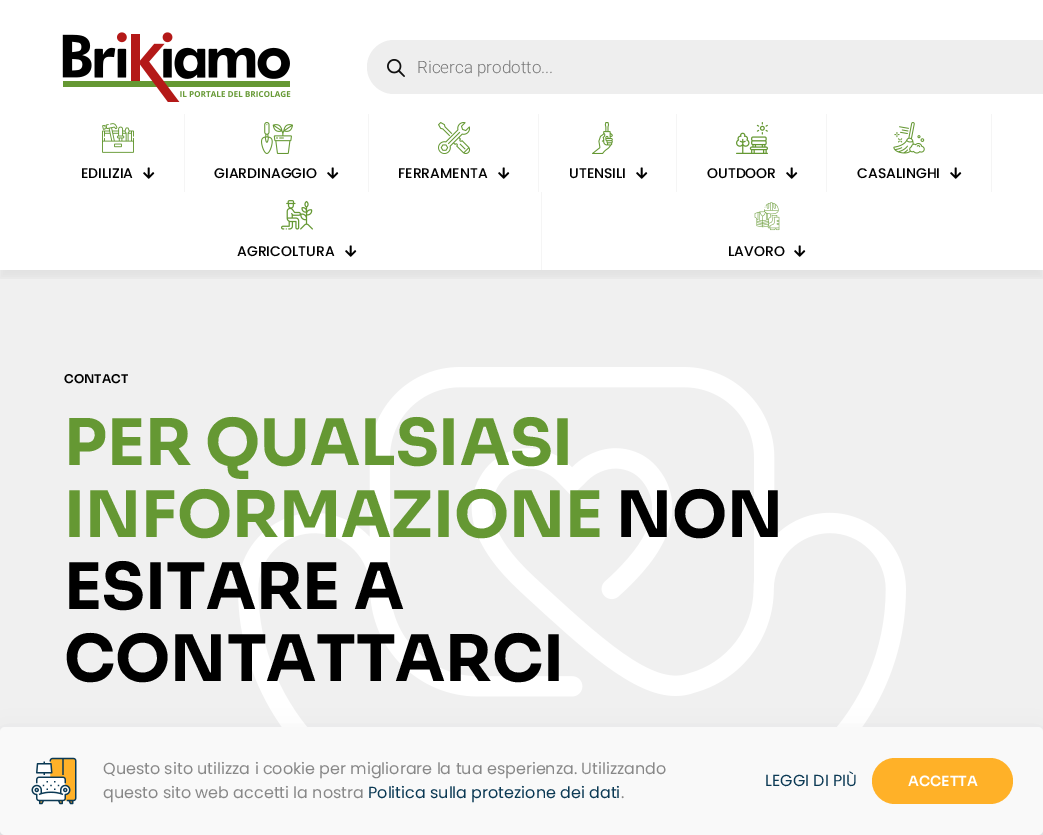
%!PS
<< /PageSize [1043 835] /PageUsesTransparency true >> setpagedevice
/m/moveto load def
/l/rlineto load def
/c/rcurveto load def
/z/closepath load def
/f/fill load def
/q/gsave load def
/Q_/grestore load def
/C { dup -16 bitshift 255 div exch dup -8 bitshift 255 and 255 div exch 255 and 255 div setrgbcolor } def
/F { [ exch dup neg 0 0 3 -1 roll 0 0 ] selectfont } def
/T { moveto show } def
/R { rectfill } def
/A { dup .setfillconstantalpha .setstrokeconstantalpha } def
/Q { 5 dict begin { /r /h /w /y /x } { exch def } forall
  x r add y moveto x w add y 2 copy h add r arct x w add y h add x 1 index r arct
  x y h add x y r arct x y 2 copy exch w add exch r arct closepath end } def
/S { 12 dict begin { /a /b /q /h /w /y /x } { exch def } forall gsave /was 0 def
  9 -2 -9 { dup b mul 4 div /e exch def 1 sub .425 mul 2.718 exch exp 1 add a .99 .min exch div /now exch def
    1 1 now sub 1 was sub div sub A /was now def
    w h .min e 2 mul add 0 gt { x e sub y e sub w e 2 mul add h e 2 mul add
      q e add b .6 mul add w h .min 2 div e add .min 0 .max Q fill } if } for grestore end } def
/I { 5 dict begin { /h /w /y /x /name } { exch def } forall
  gsave x y translate w h scale
  w h 8 [w 0 0 h 0 0] name (r) file false 3 colorimage grestore end } def
0 .pushpdf14devicefilter
0 835 translate 1 -1 scale
4 setmiterlimit
16#FFFFFF C
0 0 1043 835 R
(1.rgb) 62 32 229 70 I
16#EEEEEE C
394 40 m 649 0 l 0 54 l -649 0 l -15 0 -27 -12 -27 -27 c 0 -15 12 -27 27 -27 c z f
(2.rgb) 387 59 18 18 I
/Roboto-Light 17 F
16#777777 C
(Ricerca prodotto...) 417 73 T
16#F0F0F0 C
0 270 1043 565 R
q
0 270 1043 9 rectclip
16#000000 C
0 122 1043 156 0 4 .05 S
Q_
(3.rgb) 102 123 32 30 I
/Poppins-Medium 14 F
16#000000 C
(EDILIZIA) 81 178 T
(4.rgb) 143 167 12 12 I
16#F5F5F5 C
184 114 1 78 R
(5.rgb) 261 122 32 32 I
16#000000 C
(GIARDINAGGIO) 214 178 T
(4.rgb) 327 167 12 12 I
16#F5F5F5 C
368 114 1 78 R
(6.rgb) 438 122 32 32 I
16#000000 C
(FERRAMENTA) 398 178 T
(4.rgb) 498 167 12 12 I
16#F5F5F5 C
538 114 1 78 R
(7.rgb) 592 122 21 32 I
16#000000 C
(UTENSILI) 569 178 T
(4.rgb) 636 167 12 12 I
16#F5F5F5 C
676 114 1 78 R
(8.rgb) 736 122 32 32 I
16#000000 C
(OUTDOOR) 707 178 T
(4.rgb) 786 167 12 12 I
16#F5F5F5 C
826 114 1 78 R
(9.rgb) 893 122 32 32 I
16#000000 C
(CASALINGHI) 857 178 T
(4.rgb) 950 167 12 12 I
16#F5F5F5 C
991 114 1 78 R
(10.rgb) 281 200 32 30 I
16#000000 C
(AGRICOLTURA) 237 256 T
(4.rgb) 345 245 12 12 I
16#F5F5F5 C
541 192 1 78 R
(11.rgb) 754 202 26 29 I
16#000000 C
(LAVORO) 728 256 T
(4.rgb) 794 245 12 12 I
(12.rgb) 238 367 668 360 I
/Sora-SemiBold 12 F
(CONTACT) 64 383 T
/Sora-Bold 64 F
16#659833 C
(PER QUALSIASI) 64 465 T
(INFORMAZIONE) 64 537 T
16#000000 C
(NON) 616 537 T
(ESITARE A) 64 609 T
(CONTATTARCI) 64 681 T
16#010727 C
0 742 1043 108 5 15 .13 S
16#F9F9F9 C
0 727 1043 108 5 Q f
(13.rgb) 31 757 46 48 I
/Poppins-Regular 16 F
16#888888 C
(Questo sito utilizza i cookie per migliorare la tua esperienza. Utilizzando) 103 774 T
(questo sito web accetti la nostra) 103 798 T
16#0B3954 C
(Politica sulla protezione dei dati) 368 798 T
16#888888 C
(.) 621 798 T
16#0B3954 C
(LEGGI DI PIÙ) 765 786 T
16#FFB128 C
872 758 141 46 23 Q f
/Sora-SemiBold 14 F
16#FFFFFF C
(ACCETTA) 908 786 T
.poppdf14devicefilter showpage
